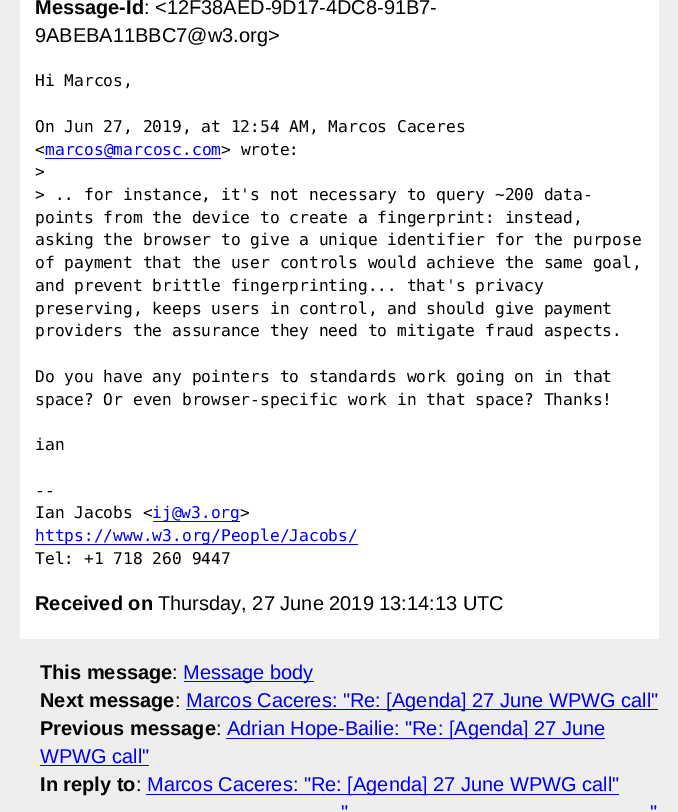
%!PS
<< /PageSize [678 812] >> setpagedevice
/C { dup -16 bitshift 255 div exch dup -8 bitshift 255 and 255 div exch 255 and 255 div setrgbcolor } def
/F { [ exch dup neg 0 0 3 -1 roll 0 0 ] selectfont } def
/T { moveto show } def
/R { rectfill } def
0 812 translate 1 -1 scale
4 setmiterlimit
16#EEEEEE C
0 0 678 812 R
16#FFFFFF C
20 0 639 639 R
/LiberationSans-Bold 20 F
16#000000 C
(Message-Id) 35 14 T
/LiberationSans-Regular 20 F
(: <12F38AED-9D17-4DC8-91B7-) 144 14 T
(9ABEBA11BBC7@w3.org>) 35 42 T
/DejaVuSansMono-Regular 16.25 F
(Hi Marcos,) 35 86 T
(On Jun 27, 2019, at 12:54 AM, Marcos Caceres) 35 132 T
(<) 35 155 T
16#0000EE C
(marcos@marcosc.com) 45 155 T
45 158 176 1 R
16#000000 C
(> wrote:) 221 155 T
(>) 35 177 T
(> .. for instance, it's not necessary to query ~200 data-) 35 200 T
(points from the device to create a fingerprint: instead,) 35 223 T
(asking the browser to give a unique identifier for the purpose) 35 245 T
(of payment that the user controls would achieve the same goal,) 35 268 T
(and prevent brittle fingerprinting... that's privacy) 35 291 T
(preserving, keeps users in control, and should give payment) 35 314 T
(providers the assurance they need to mitigate fraud aspects.) 35 336 T
(Do you have any pointers to standards work going on in that) 35 382 T
(space? Or even browser-specific work in that space? Thanks!) 35 405 T
(ian) 35 450 T
(--) 35 496 T
(Ian Jacobs <) 35 518 T
16#0000EE C
153 521 87 1 R
(ij@w3.org) 152 518 T
16#000000 C
(>) 240 518 T
16#0000EE C
35 544 323 1 R
(https://www.w3.org/People/Jacobs/) 35 541 T
16#000000 C
(Tel: +1 718 260 9447) 35 564 T
/LiberationSans-Bold 20 F
(Received on) 35 610 T
/LiberationSans-Regular 20 F
(Thursday, 27 June 2019 13:14:13 UTC) 158 610 T
/LiberationSans-Bold 20 F
(This message) 40 679 T
/LiberationSans-Regular 20 F
(:) 172 679 T
16#0000EE C
184 681 130 1 R
(Message body) 183 679 T
/LiberationSans-Bold 20 F
16#000000 C
(Next message) 40 707 T
/LiberationSans-Regular 20 F
(:) 175 707 T
16#0000EE C
186 709 472 1 R
(Marcos Caceres: "Re: [Agenda] 27 June WPWG call") 186 707 T
/LiberationSans-Bold 20 F
16#000000 C
(Previous message) 40 735 T
/LiberationSans-Regular 20 F
(:) 216 735 T
16#0000EE C
226 738 379 1 R
(Adrian Hope-Bailie: "Re: [Agenda] 27 June) 227 735 T
(WPWG call") 40 763 T
40 765 109 1 R
/LiberationSans-Bold 20 F
16#000000 C
(In reply to) 40 791 T
/LiberationSans-Regular 20 F
(:) 136 791 T
16#0000EE C
146 794 473 1 R
(Marcos Caceres: "Re: [Agenda] 27 June WPWG call") 147 791 T
(") 341 819 T
(") 650 819 T
showpage
